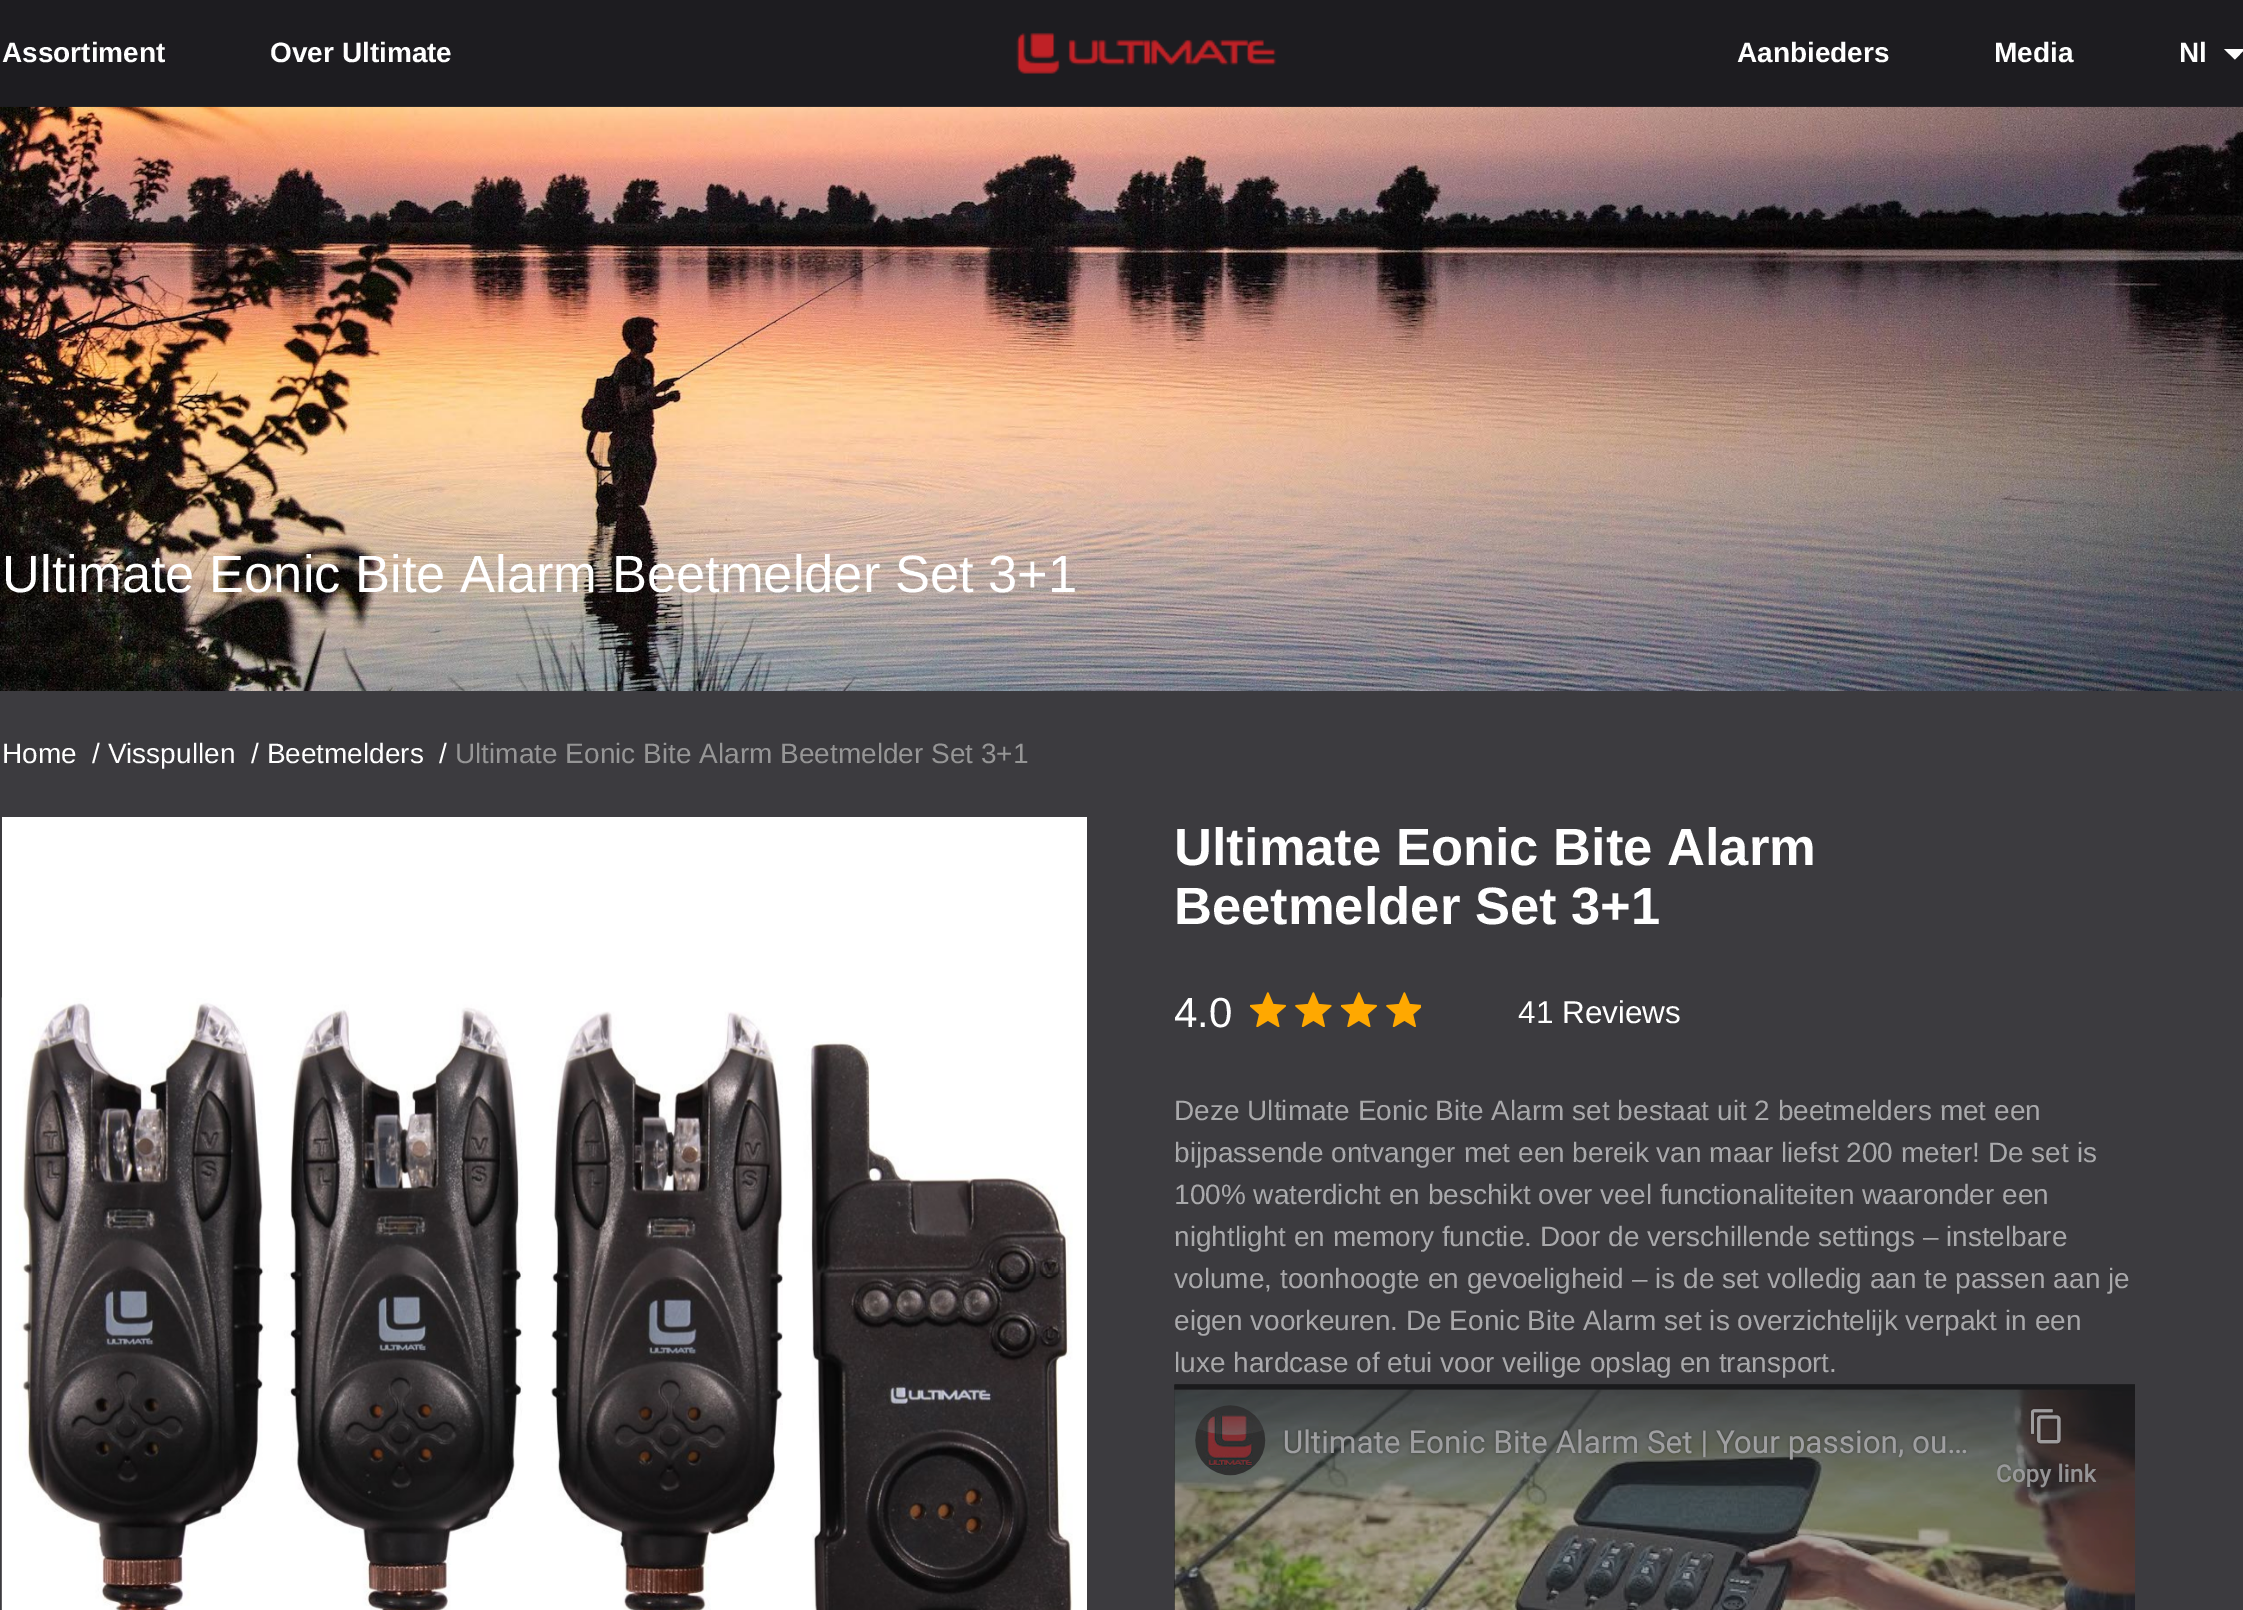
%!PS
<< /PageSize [2243 1610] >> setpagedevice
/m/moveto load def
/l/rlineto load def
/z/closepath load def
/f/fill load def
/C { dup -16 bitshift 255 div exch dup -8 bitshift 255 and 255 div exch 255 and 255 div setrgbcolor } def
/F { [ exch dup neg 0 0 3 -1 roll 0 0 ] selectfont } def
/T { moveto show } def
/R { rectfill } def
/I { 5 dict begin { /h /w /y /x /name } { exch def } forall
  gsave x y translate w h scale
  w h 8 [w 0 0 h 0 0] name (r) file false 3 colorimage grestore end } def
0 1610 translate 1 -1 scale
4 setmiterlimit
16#1D1C20 C
0 0 2243 1610 R
/LiberationSans-Bold 28 F
16#FFFFFF C
(Assortiment) 2 62 T
(Over Ultimate) 270 62 T
(1.rgb) 1016 32 261 42 I
(Aanbieders) 1737 62 T
(Media) 1994 62 T
(Nl) 2179 62 T
2224 49 m 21 0 l -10 10.5 l z f
(2.rgb) 0 106 2243 585 I
/LiberationSans-Regular 52.5 F
(Ultimate Eonic Bite Alarm Beetmelder Set 3+1) 2 592 T
16#3C3B3F C
0 691 2243 919 R
/LiberationSans-Regular 28 F
16#FFFFFF C
(Home) 2 763 T
(/ Visspullen) 92 763 T
(/ Beetmelders) 251 763 T
(/) 439 763 T
16#969696 C
(Ultimate Eonic Bite Alarm Beetmelder Set 3+1) 455 763 T
16#FFFFFF C
2 817 1085 793 R
(3.rgb) 1 997 1072 613 I
/LiberationSans-Bold 52.5 F
(Ultimate Eonic Bite Alarm) 1174 865 T
(Beetmelder Set 3+1) 1174 924 T
/LiberationSans-Regular 42 F
(4.0) 1174 1027 T
(4.rgb) 1250 992 36 35 I
(5.rgb) 1295 992 37 35 I
(4.rgb) 1341 992 36 35 I
(6.rgb) 1386 992 35 35 I
/LiberationSans-Regular 31.5 F
(41 Reviews) 1518 1023 T
/LiberationSans-Regular 28 F
16#A9A9AB C
(Deze Ultimate Eonic Bite Alarm set bestaat uit 2 beetmelders met een) 1174 1120 T
(bijpassende ontvanger met een bereik van maar liefst 200 meter! De set is) 1174 1162 T
(100% waterdicht en beschikt over veel functionaliteiten waaronder een) 1174 1204 T
(nightlight en memory functie. Door de verschillende settings – instelbare) 1174 1246 T
(volume, toonhoogte en gevoeligheid – is de set volledig aan te passen aan je) 1174 1288 T
(eigen voorkeuren. De Eonic Bite Alarm set is overzichtelijk verpakt in een) 1174 1330 T
(luxe hardcase of etui voor veilige opslag en transport.) 1174 1372 T
(7.rgb) 1174 1384 961 226 I
showpage
